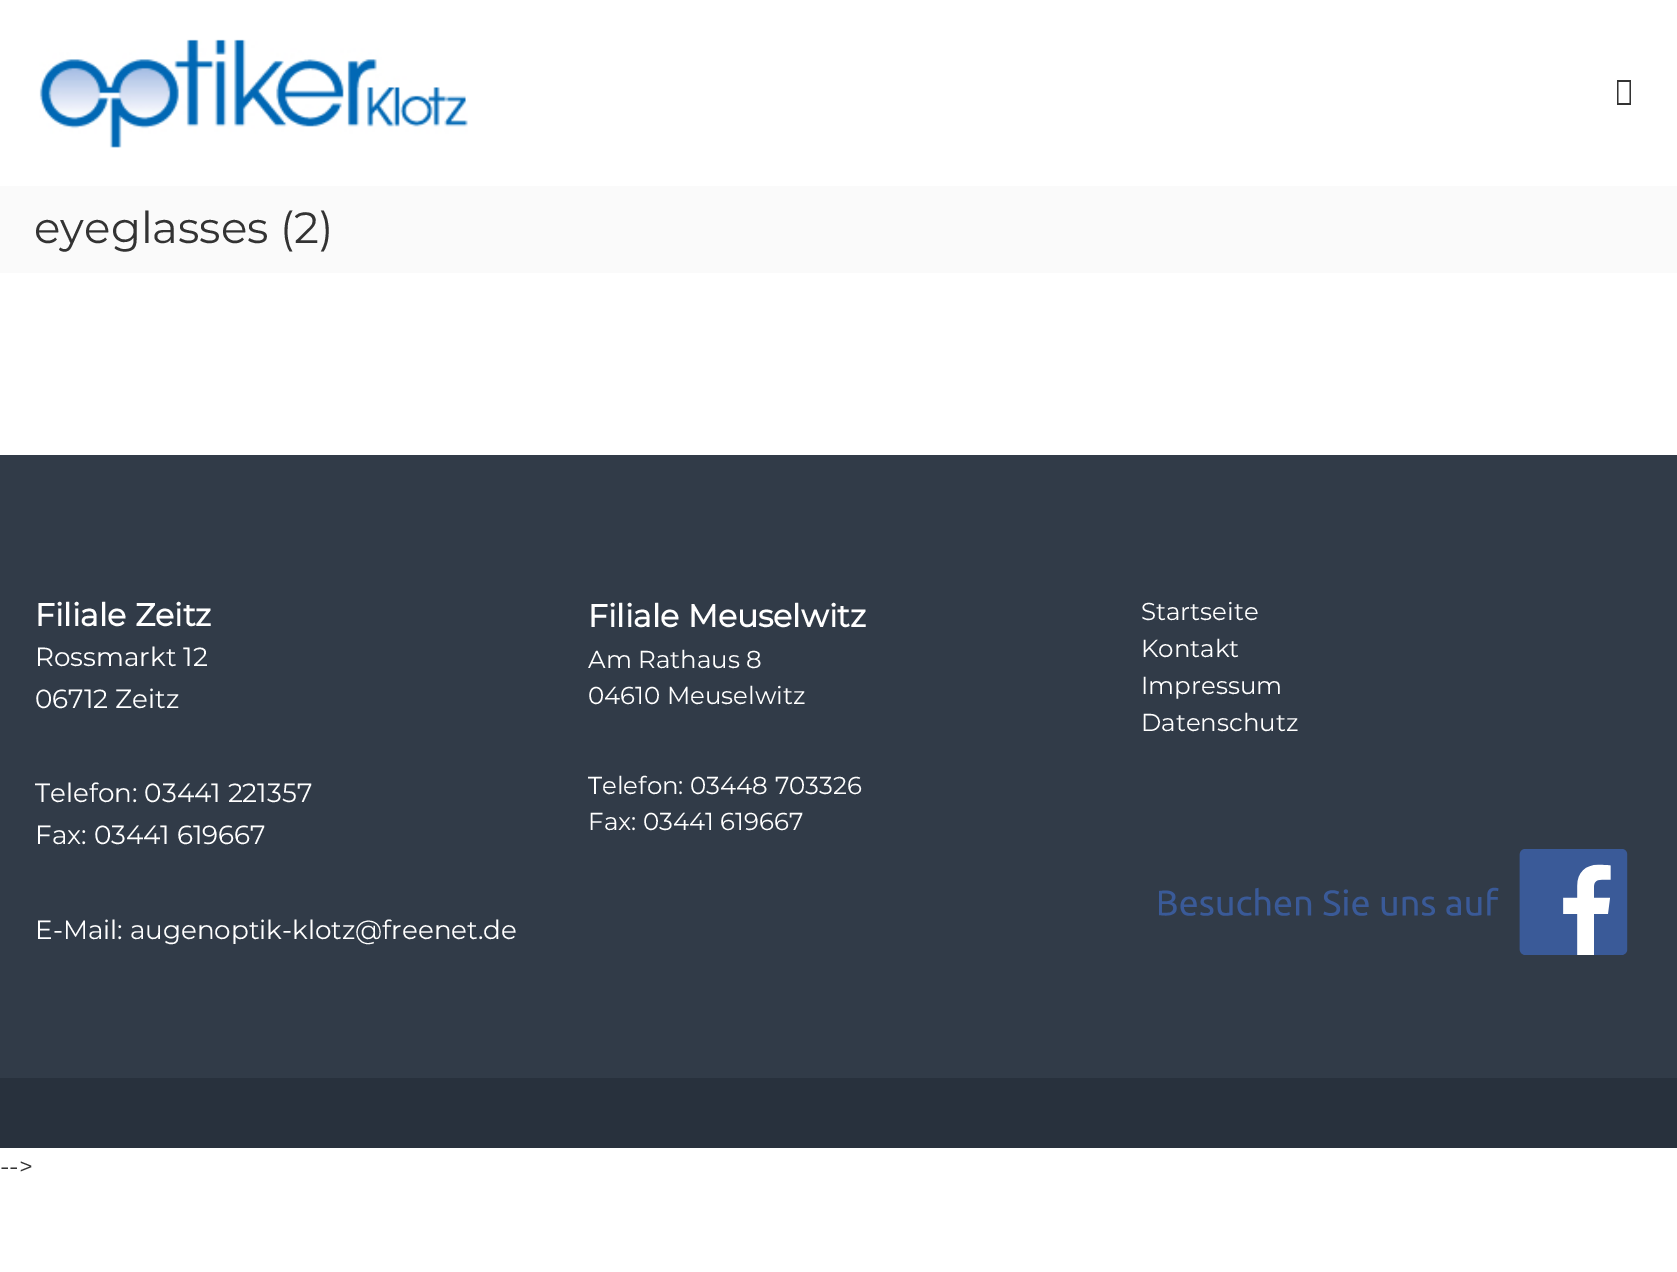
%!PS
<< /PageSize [1677 1272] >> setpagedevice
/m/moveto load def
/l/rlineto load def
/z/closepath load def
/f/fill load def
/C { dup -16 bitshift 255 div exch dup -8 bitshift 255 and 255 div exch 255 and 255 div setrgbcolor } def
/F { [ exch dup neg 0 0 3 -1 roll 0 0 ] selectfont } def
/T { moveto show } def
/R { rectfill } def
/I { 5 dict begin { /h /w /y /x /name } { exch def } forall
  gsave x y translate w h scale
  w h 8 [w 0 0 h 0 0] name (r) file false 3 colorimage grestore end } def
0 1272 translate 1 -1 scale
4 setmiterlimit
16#FFFFFF C
0 0 1677 1272 R
(1.rgb) 39 39 429 109 I
16#333333 C
1617 105 m 0 -25 l 14 0 l 0 25 l z 1618.5 103 m 11 0 l 0 -21 l -11 0 l z f
16#FAFAFA C
0 186 1677 87 R
/Montserrat-Regular 43.75 F
16#333333 C
(eyeglasses \(2\)) 34 243 T
16#313B48 C
0 455 1677 623 R
/Montserrat-Bold 31.5 F
16#FFFFFF C
(Filiale Zeitz) 35 626 T
/Montserrat-Regular 26.25 F
(Rossmarkt 12) 35 666 T
(06712 Zeitz) 35 708 T
(Telefon: 03441 221357) 35 802 T
(Fax: 03441 619667) 35 844 T
(E-Mail: augenoptik-klotz@freenet.de) 35 939 T
/Montserrat-Bold 31.5 F
(Filiale Meuselwitz) 588 627 T
/Montserrat-Regular 24.5 F
(Am Rathaus 8) 588 668 T
(04610 Meuselwitz) 588 704 T
(Telefon: 03448 703326) 588 794 T
(Fax: 03441 619667) 588 830 T
(Startseite) 1141 620 T
(Kontakt) 1141 657 T
(Impressum) 1141 694 T
(Datenschutz) 1141 731 T
(2.rgb) 1159 849 469 106 I
16#28313D C
0 1078 1677 70 R
16#333333 C
(-->) 0 1175 T
showpage
